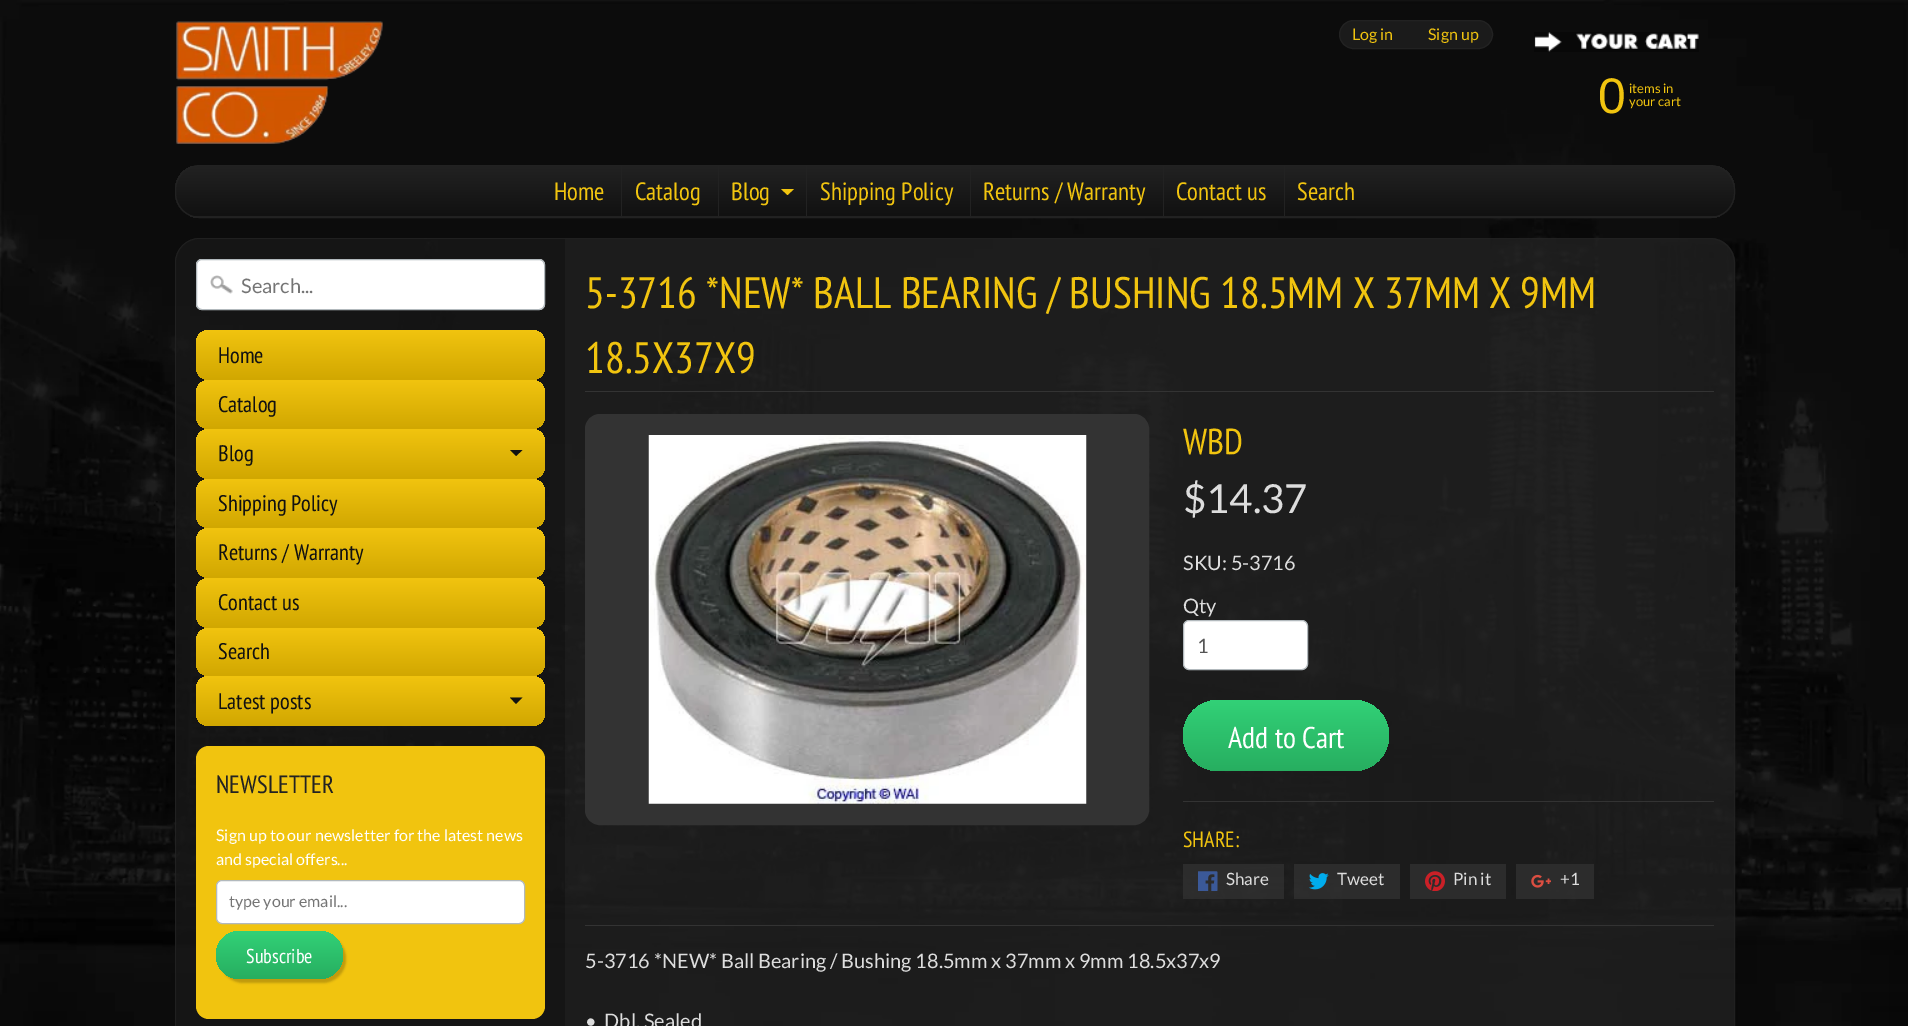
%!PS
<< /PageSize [1908 1026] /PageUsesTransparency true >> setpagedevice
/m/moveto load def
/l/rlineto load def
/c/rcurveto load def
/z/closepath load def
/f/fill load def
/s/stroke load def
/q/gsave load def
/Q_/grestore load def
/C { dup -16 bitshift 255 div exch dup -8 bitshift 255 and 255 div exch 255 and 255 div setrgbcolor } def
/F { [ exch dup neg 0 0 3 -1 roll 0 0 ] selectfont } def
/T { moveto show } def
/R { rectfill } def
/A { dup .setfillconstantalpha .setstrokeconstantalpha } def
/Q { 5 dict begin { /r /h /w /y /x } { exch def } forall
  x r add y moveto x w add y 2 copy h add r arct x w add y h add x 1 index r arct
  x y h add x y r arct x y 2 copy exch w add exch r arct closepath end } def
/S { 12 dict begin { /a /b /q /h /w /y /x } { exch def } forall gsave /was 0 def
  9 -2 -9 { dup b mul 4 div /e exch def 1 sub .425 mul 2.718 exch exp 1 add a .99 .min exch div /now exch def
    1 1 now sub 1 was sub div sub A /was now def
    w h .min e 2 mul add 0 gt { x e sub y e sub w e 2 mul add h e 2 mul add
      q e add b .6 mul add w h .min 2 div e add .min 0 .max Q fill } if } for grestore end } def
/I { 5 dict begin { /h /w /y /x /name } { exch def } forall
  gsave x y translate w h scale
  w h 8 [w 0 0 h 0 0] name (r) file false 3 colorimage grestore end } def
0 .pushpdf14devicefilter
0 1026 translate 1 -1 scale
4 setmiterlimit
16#FFFFFF C
0 0 1908 1026 R
(1.rgb) 0 0 1908 1026 I
(2.rgb) 176 21 207 123 I
16#1B1B1B C
1339.5 20.5 153 28 14 Q q f Q_
16#222222 C
s
/Lato-Regular 16 F
16#F1C40F C
(Log in) 1352 40 T
(Sign up) 1428 40 T
(3.rgb) 1534 32 165 20 I
/LiberationSans-Regular 50 F
(0) 1598 113 T
/Lato-Regular 13 F
(items in) 1629 93 T
(your cart) 1629 106 T
q
175 165 1560 53 25 Q clip newpath
q 175 166 m 1560 0 l 0 50 l -1560 0 l z clip newpath
<< /ShadingType 2 /ColorSpace /DeviceRGB /Coords [955 166 955 216] /Extend [true true] /Function << /FunctionType 2 /Domain [0 1] /C0 [.133 .133 .133] /C1 [.067 .067 .067] /N 1 >> >> shfill Q_
q 190 216 m 1530 0 l 0 2 l -1530 0 l z clip newpath
<< /ShadingType 2 /ColorSpace /DeviceRGB /Coords [955 216 955 266] /Extend [true true] /Function << /FunctionType 2 /Domain [0 1] /C0 [.133 .133 .133] /C1 [.067 .067 .067] /N 1 >> >> shfill Q_
Q_
16#222222 C
175.5 165.5 1559 52 24.5 Q s
/PTSansNarrow-Regular 25 F
16#F1C40F C
(Home) 554 200 T
16#222222 C
621 166 1 50 R
16#F1C40F C
(Catalog) 635 200 T
16#222222 C
718 166 1 50 R
16#F1C40F C
(Blog) 731 200 T
781 189 m 13 0 l -6.5 6 l z f
16#222222 C
806 166 1 50 R
16#F1C40F C
(Shipping Policy) 820 200 T
16#222222 C
970 166 1 50 R
16#F1C40F C
(Returns / Warranty) 983 200 T
16#222222 C
1163 166 1 50 R
16#F1C40F C
(Contact us) 1176 200 T
16#222222 C
1284 166 1 50 R
16#F1C40F C
(Search) 1297 200 T
0.75 A
16#222222 C
175 238 1560 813 25 Q f
0.7 A
175.5 238.5 1559 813 24.5 Q s
0.25 A
16#000000 C
200 239 m 365 0 l 0 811 l -389 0 l 0 -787 l 0 -13.5 10.5 -24 24 -24 c z f
1 A
16#FFFFFF C
196 259 349 51 6 Q f
(4.rgb) 210 275 23 19 I
16#B2B9BD C
196.5 259.5 348 50 5.5 Q s
/Lato-Regular 20 F
16#757575 C
(Search...) 241 293 T
q 196 330 349 50 13 Q clip newpath
<< /ShadingType 2 /ColorSpace /DeviceRGB /Coords [371 330 371 380] /Extend [true true] /Function << /FunctionType 2 /Domain [0 1] /C0 [.945 .769 .059] /C1 [.82 .655 .004] /N 1 >> >> shfill Q_
/PTSansNarrow-Regular 22.5 F
16#111111 C
(Home) 218 363 T
q 196 380 349 49 13 Q clip newpath
<< /ShadingType 2 /ColorSpace /DeviceRGB /Coords [371 380 371 429] /Extend [true true] /Function << /FunctionType 2 /Domain [0 1] /C0 [.945 .769 .059] /C1 [.82 .655 .004] /N 1 >> >> shfill Q_
(Catalog) 218 412 T
q 196 429 349 50 13 Q clip newpath
<< /ShadingType 2 /ColorSpace /DeviceRGB /Coords [371 429 371 479] /Extend [true true] /Function << /FunctionType 2 /Domain [0 1] /C0 [.945 .769 .059] /C1 [.82 .655 .004] /N 1 >> >> shfill Q_
(Blog) 218 461 T
510 450 m 12.5 0 l -6.5 6 l z f
q 196 479 349 49 13 Q clip newpath
<< /ShadingType 2 /ColorSpace /DeviceRGB /Coords [371 479 371 528] /Extend [true true] /Function << /FunctionType 2 /Domain [0 1] /C0 [.945 .769 .059] /C1 [.82 .655 .004] /N 1 >> >> shfill Q_
(Shipping Policy) 218 511 T
q 196 528 349 50 13 Q clip newpath
<< /ShadingType 2 /ColorSpace /DeviceRGB /Coords [371 528 371 578] /Extend [true true] /Function << /FunctionType 2 /Domain [0 1] /C0 [.945 .769 .059] /C1 [.82 .655 .004] /N 1 >> >> shfill Q_
(Returns / Warranty) 218 560 T
q 196 578 349 50 13 Q clip newpath
<< /ShadingType 2 /ColorSpace /DeviceRGB /Coords [371 578 371 628] /Extend [true true] /Function << /FunctionType 2 /Domain [0 1] /C0 [.945 .769 .059] /C1 [.82 .655 .004] /N 1 >> >> shfill Q_
(Contact us) 218 610 T
q 196 628 349 48 13 Q clip newpath
<< /ShadingType 2 /ColorSpace /DeviceRGB /Coords [371 628 371 676] /Extend [true true] /Function << /FunctionType 2 /Domain [0 1] /C0 [.945 .769 .059] /C1 [.82 .655 .004] /N 1 >> >> shfill Q_
(Search) 218 659 T
q 196 676 349 50 13 Q clip newpath
<< /ShadingType 2 /ColorSpace /DeviceRGB /Coords [371 676 371 726] /Extend [true true] /Function << /FunctionType 2 /Domain [0 1] /C0 [.945 .769 .059] /C1 [.82 .655 .004] /N 1 >> >> shfill Q_
(Latest posts) 218 709 T
510 697.5 m 12.5 0 l -6.5 6.5 l z f
16#F1C40F C
196 746 349 273 13 Q f
/PTSansNarrow-Regular 25 F
16#222222 C
(NEWSLETTER) 216 793 T
/Lato-Regular 16 F
16#FFFFFF C
(Sign up to our newsletter for the latest news) 216 841 T
(and special offers...) 216 865 T
216.5 880.5 308 43 5.5 Q q f Q_
16#B2B9BD C
s
16#757575 C
(type your email...) 229 907 T
16#000000 C
220 935 126 48 24 1 .2 S
q 216 931 127 48 24 Q clip newpath
<< /ShadingType 2 /ColorSpace /DeviceRGB /Coords [279 931 279 979] /Extend [true true] /Function << /FunctionType 2 /Domain [0 1] /C0 [.196 .82 .467] /C1 [.153 .682 .376] /N 1 >> >> shfill Q_
/PTSansNarrow-Regular 20 F
16#FFFFFF C
(Subscribe) 246 963 T
16#333333 C
585 391 1129 1 R
/PTSansNarrow-Regular 44 F
16#F1C40F C
(5-3716 *NEW* BALL BEARING / BUSHING 18.5MM X 37MM X 9MM) 585 308 T
(18.5X37X9) 585 373 T
16#333333 C
585.5 414.5 563 410 14.5 Q q f Q_
s
(5.rgb) 648 435 439 369 I
/PTSansNarrow-Regular 36 F
16#F1C40F C
(WBD) 1183 454 T
/Lato-Regular 40 F
16#DDDDDD C
($14.37) 1183 513 T
/Lato-Regular 20 F
(SKU: 5-3716) 1183 570 T
(Qty) 1183 613 T
16#FFFFFF C
1183.5 620.5 124 49 5.5 Q q f Q_
16#B2B9BD C
s
16#555555 C
(1) 1197 653 T
q 1183 700 206 71 35.5 Q clip newpath
<< /ShadingType 2 /ColorSpace /DeviceRGB /Coords [1286 700 1286 771] /Extend [true true] /Function << /FunctionType 2 /Domain [0 1] /C0 [.196 .82 .467] /C1 [.153 .682 .376] /N 1 >> >> shfill Q_
/PTSansNarrow-Regular 30 F
16#FFFFFF C
(Add to Cart) 1228 748 T
16#333333 C
1183 801 531 1 R
/PTSansNarrow-Regular 22 F
16#F1C40F C
(SHARE:) 1183 847 T
0.7 A
16#333333 C
1183 864 101 35 R
1 A
(6.rgb) 1198 871 20 20 I
/Lato-Regular 17 F
16#DDDDDD C
(Share) 1226 885 T
0.7 A
16#333333 C
1294 864 106 35 R
1 A
(7.rgb) 1309 873 20 17 I
16#DDDDDD C
(Tweet) 1337 885 T
16#2C2C2C C
1410 864 96 35 R
(8.rgb) 1425 871 20 20 I
16#DDDDDD C
(Pin it) 1453 885 T
0.7 A
16#333333 C
1516 864 78 35 R
1 A
(9.rgb) 1531 874 20 14 I
16#DDDDDD C
(+1) 1560 885 T
16#333333 C
585 925 1129 1 R
/Lato-Regular 20 F
16#DDDDDD C
(5-3716 *NEW* Ball Bearing / Bushing 18.5mm x 37mm x 9mm 18.5x37x9) 585 968 T
(•  Dbl. Sealed) 585 1028 T
.poppdf14devicefilter showpage
